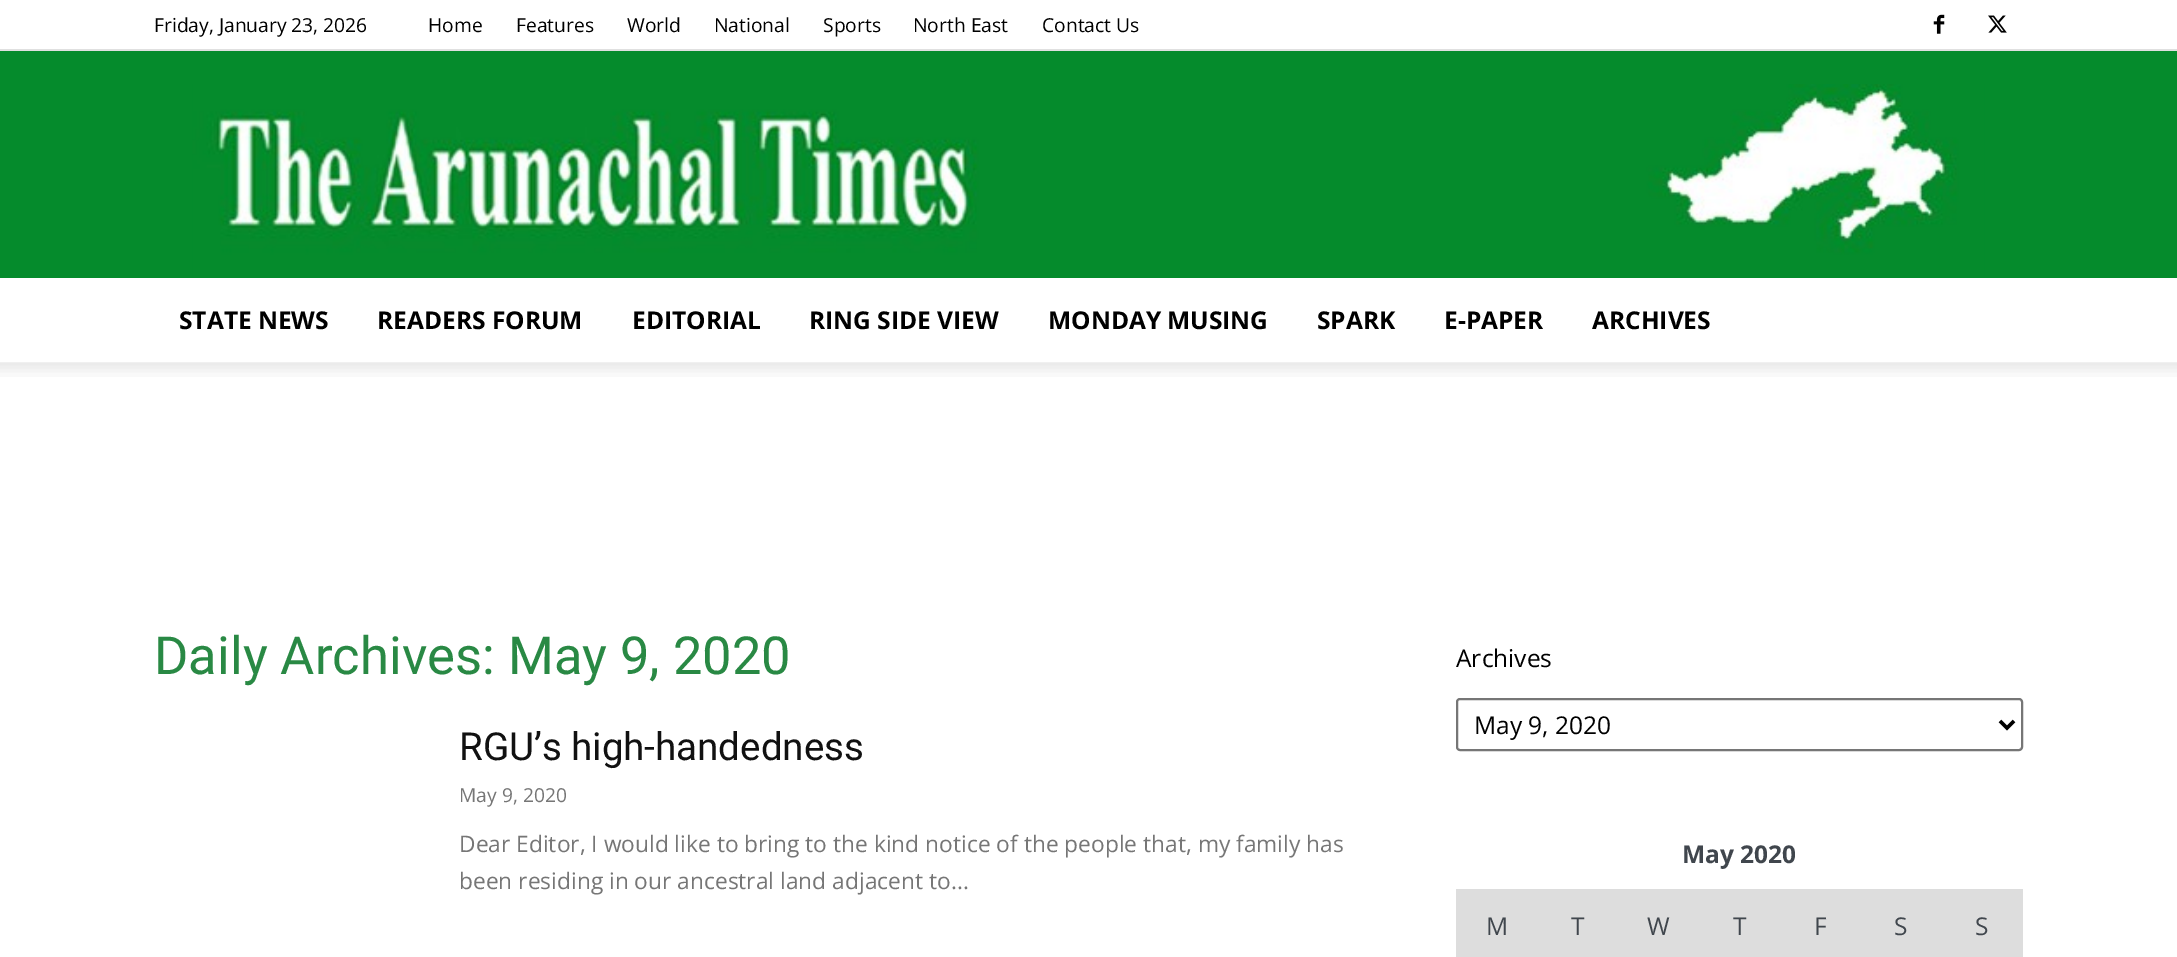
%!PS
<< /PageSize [2177 957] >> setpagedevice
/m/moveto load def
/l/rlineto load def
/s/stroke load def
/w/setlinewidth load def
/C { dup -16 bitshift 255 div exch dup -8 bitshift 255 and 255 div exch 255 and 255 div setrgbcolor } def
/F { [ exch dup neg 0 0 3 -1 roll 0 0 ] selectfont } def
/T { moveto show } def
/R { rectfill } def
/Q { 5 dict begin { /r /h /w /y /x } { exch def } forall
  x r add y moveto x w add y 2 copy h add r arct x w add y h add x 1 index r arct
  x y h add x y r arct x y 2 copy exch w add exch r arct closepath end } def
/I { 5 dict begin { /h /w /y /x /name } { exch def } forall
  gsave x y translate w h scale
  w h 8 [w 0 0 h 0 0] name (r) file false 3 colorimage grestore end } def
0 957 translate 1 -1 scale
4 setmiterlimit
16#FFFFFF C
0 0 2177 957 R
16#E0E0E0 C
0 49 2177 2 R
/OpenSans-Regular 19.25 F
16#000000 C
(Friday, January 23, 2026) 154 32 T
(Home) 428 32 T
(Features) 516 32 T
(World) 627 32 T
(National) 714 32 T
(Sports) 823 32 T
(North East) 913 32 T
(Contact Us) 1042 32 T
(1.rgb) 1933 14 12 20 I
(2.rgb) 1988 15 19 18 I
16#058B2C C
0 51 2177 227 R
(3.rgb) 192 84 1793 194 I
/OpenSans-Bold 24.5 F
16#000000 C
(STATE NEWS) 179 329 T
(READERS FORUM) 377 329 T
(EDITORIAL) 632 329 T
(RING SIDE VIEW) 809 329 T
(MONDAY MUSING) 1048 329 T
(SPARK) 1317 329 T
(E-PAPER) 1444 329 T
(ARCHIVES) 1592 329 T
(4.rgb) 0 362 2177 15 I
/Roboto-Regular 52.5 F
16#298944 C
(Daily Archives: May 9, 2020) 154 674 T
/Roboto-Regular 38.5 F
16#111111 C
(RGU’s high-handedness) 459 760 T
/OpenSans-Regular 19.25 F
16#767676 C
(May 9, 2020) 459 802 T
/OpenSans-Regular 22.75 F
(Dear Editor, I would like to bring to the kind notice of the people that, my family has) 459 852 T
(been residing in our ancestral land adjacent to...) 459 889 T
/OpenSans-Regular 24.5 F
16#000000 C
(Archives) 1456 667 T
16#767676 C
2 w
1457 699 565 51 3 Q s
16#000000 C
3.5 w
2000 721 m 7 7 l 7 -7 l s
(May 9, 2020) 1474 734 T
/OpenSans-Bold 24.5 F
16#40464D C
(May 2020) 1682 863 T
16#DDDDDD C
1458 891 565 66 R
1456 889 567 2 R
1456 889 2 68 R
/OpenSans-Regular 24.5 F
16#40464D C
(M) 1486 935 T
(T) 1571 935 T
(W) 1647 935 T
(T) 1733 935 T
(F) 1814 935 T
(S) 1894 935 T
(S) 1975 935 T
showpage
